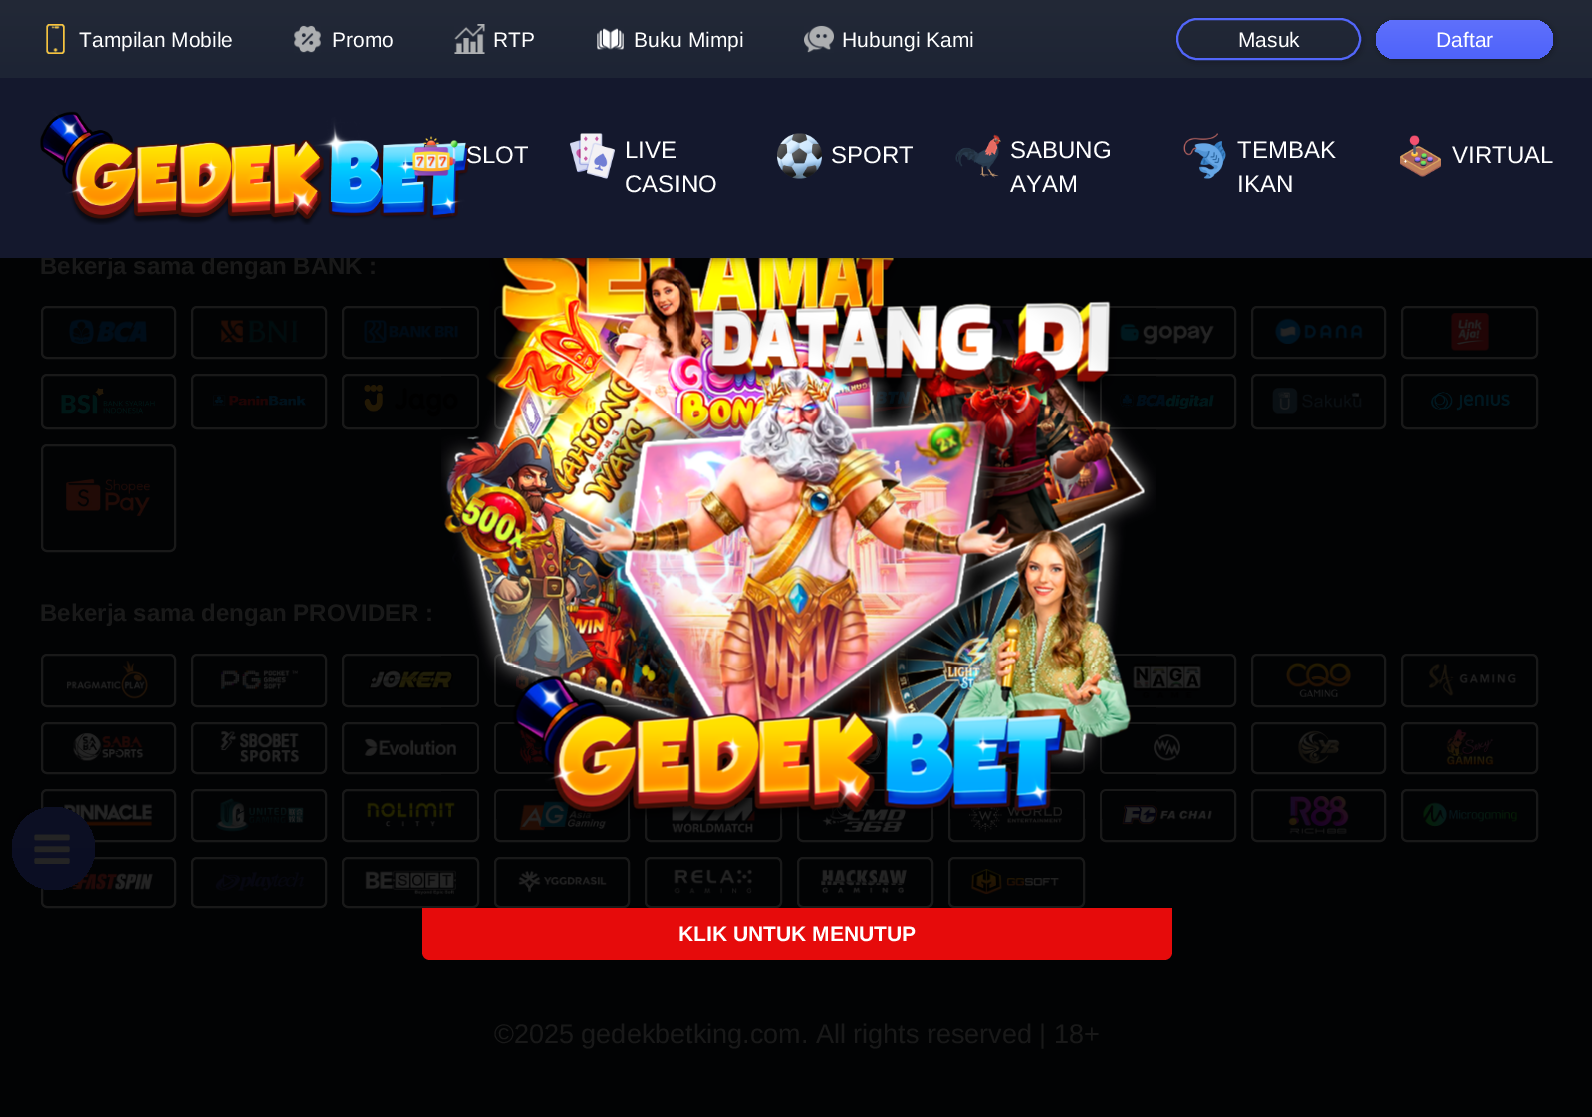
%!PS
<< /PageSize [1592 1117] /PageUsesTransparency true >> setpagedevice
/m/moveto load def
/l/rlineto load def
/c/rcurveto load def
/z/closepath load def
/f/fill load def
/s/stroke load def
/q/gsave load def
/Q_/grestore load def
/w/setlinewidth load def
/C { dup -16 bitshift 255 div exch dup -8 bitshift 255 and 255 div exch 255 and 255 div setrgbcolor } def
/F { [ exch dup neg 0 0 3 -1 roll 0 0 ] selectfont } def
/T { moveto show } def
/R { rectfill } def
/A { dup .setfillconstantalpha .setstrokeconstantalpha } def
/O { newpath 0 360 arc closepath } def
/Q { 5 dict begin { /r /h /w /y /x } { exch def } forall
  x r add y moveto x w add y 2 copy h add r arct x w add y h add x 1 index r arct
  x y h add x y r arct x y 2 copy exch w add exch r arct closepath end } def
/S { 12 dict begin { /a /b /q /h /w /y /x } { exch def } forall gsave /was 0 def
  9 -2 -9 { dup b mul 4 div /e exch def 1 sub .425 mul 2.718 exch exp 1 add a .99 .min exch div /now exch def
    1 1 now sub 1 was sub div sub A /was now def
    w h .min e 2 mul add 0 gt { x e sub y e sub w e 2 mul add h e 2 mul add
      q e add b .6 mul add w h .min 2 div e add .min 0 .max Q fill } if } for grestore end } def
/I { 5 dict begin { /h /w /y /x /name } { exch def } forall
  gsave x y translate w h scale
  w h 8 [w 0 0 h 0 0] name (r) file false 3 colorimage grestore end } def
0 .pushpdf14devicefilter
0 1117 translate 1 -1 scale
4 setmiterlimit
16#020304 C
0 0 1592 1117 R
16#191919 C
2 w
343 307 135 51 5 Q s
(15.rgb) 364 320 94 23 I
495 307 134 51 5 Q s
(16.rgb) 524 330 9 13 I
646 307 135 51 5 Q s
(17.rgb) 704 322 10 8 I
798 307 134 51 5 Q s
(18.rgb) 825 321 64 22 I
949 307 135 51 5 Q s
(19.rgb) 988 318 67 27 I
1101 307 134 51 5 Q s
(20.rgb) 1120 323 94 22 I
343 375 135 53 5 Q s
(25.rgb) 364 385 94 32 I
495 375 134 53 5 Q s
798 375 134 53 rectstroke
(26.rgb) 874 391 37 21 I
949 375 135 53 rectstroke
1101 375 134 53 5 Q s
(27.rgb) 1120 394 94 15 I
343 655 135 51 5 Q s
(33.rgb) 369 669 84 20 I
495 655 134 51 5 Q s
(34.rgb) 516 669 65 21 I
1101 655 134 51 5 Q s
(35.rgb) 1133 662 68 36 I
343 723 135 50 5 Q s
(40.rgb) 364 738 92 18 I
495 723 134 50 5 Q s
(41.rgb) 519 729 31 36 I
(42.rgb) 683 755 7 2 I
798 723 134 50 rectstroke
(43.rgb) 858 731 24 34 I
949 723 135 50 5 Q s
(44.rgb) 1000 754 18 11 I
1101 723 134 50 5 Q s
(45.rgb) 1154 734 26 27 I
343 790 135 51 5 Q s
(50.rgb) 367 802 88 25 I
495 790 134 51 5 Q s
(51.rgb) 519 801 88 30 I
646 790 135 51 5 Q s
(52.rgb) 672 797 83 36 I
798 790 134 51 5 Q s
(53.rgb) 822 799 84 33 I
949 790 135 51 5 Q s
(54.rgb) 969 806 93 26 I
1101 790 134 51 5 Q s
(55.rgb) 1122 805 90 20 I
(68.rgb) 441 258 715 561 I
16#000000 C
9 18 1575 240 0 4.5 .5 S
q 0 0 m 1592 0 l 0 78 l -1592 0 l z clip newpath
<< /ShadingType 2 /ColorSpace /DeviceRGB /Coords [797 0 797 78] /Extend [true true] /Function << /FunctionType 2 /Domain [0 1] /C0 [.137 .161 .216] /C1 [.114 .141 .204] /N 1 >> >> shfill Q_
(1.rgb) 46 24 19 30 I
/LiberationSans-Regular 21 F
16#FFFFFF C
(Tampilan Mobile) 79 47 T
(2.rgb) 294 25 27 28 I
(Promo) 332 47 T
(3.rgb) 454 24 31 30 I
(RTP) 493 47 T
(4.rgb) 597 28 27 22 I
(Buku Mimpi) 634 47 T
(5.rgb) 804 25 30 28 I
(Hubungi Kami) 842 47 T
q
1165 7 m 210 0 l 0 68 l -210 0 l z 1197 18 m 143 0 l 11.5 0 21 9.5 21 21 c 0 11.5 -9.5 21 -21 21 c -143 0 l -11.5 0 -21 -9.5 -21 -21 c 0 -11.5 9.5 -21 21 -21 c z eoclip newpath
16#000000 C
1178 20 184 42 21 4 .3 S
Q_
16#5266FA C
1177 19 183 40 20 Q s
16#FFFFFF C
(Masuk) 1238 47 T
16#000000 C
1377 21 177 39 19.5 4 .3 S
q 1376 20 177 39 19.5 Q clip newpath
<< /ShadingType 2 /ColorSpace /DeviceRGB /Coords [1464 19 1464 59] /Extend [true true] /Function << /FunctionType 2 /Domain [0 1] /C0 [.373 .439 .984] /C1 [.306 .388 .98] /N 1 >> >> shfill Q_
16#FFFFFF C
(Daftar) 1436 47 T
/LiberationSans-Bold 24 F
16#191919 C
(Bekerja sama dengan BANK :) 40 274 T
16#14182D C
0 78 1592 180 R
(6.rgb) 40 111 431 114 I
(7.rgb) 412 136 46 40 I
/LiberationSans-Regular 24 F
16#FFFFFF C
(SLOT) 466 163 T
(8.rgb) 570 133 45 46 I
(LIVE) 625 158 T
(CASINO) 625 192 T
(9.rgb) 777 133 45 46 I
(SPORT) 831 163 T
(10.rgb) 955 134 46 44 I
(SABUNG) 1010 158 T
(AYAM) 1010 192 T
(11.rgb) 1183 133 43 46 I
(TEMBAK) 1237 158 T
(IKAN) 1237 192 T
(12.rgb) 1400 135 41 42 I
(VIRTUAL) 1452 163 T
16#191919 C
42 307 133 51 5 Q s
(13.rgb) 69 319 78 25 I
192 307 134 51 5 Q s
(14.rgb) 221 320 77 23 I
1252 307 133 51 5 Q s
(21.rgb) 1274 318 89 26 I
1402 307 135 51 5 Q s
(22.rgb) 1451 313 38 38 I
42 375 133 53 5 Q s
(23.rgb) 61 388 94 26 I
192 375 134 53 5 Q s
(24.rgb) 213 395 93 11 I
1252 375 133 53 5 Q s
(28.rgb) 1272 388 90 26 I
1402 375 135 53 5 Q s
(29.rgb) 1431 392 79 19 I
42 445 133 106 5 Q s
(30.rgb) 66 478 84 39 I
/LiberationSans-Bold 24 F
(Bekerja sama dengan PROVIDER :) 40 621 T
42 655 133 51 5 Q s
(31.rgb) 67 661 81 38 I
192 655 134 51 5 Q s
(32.rgb) 221 670 77 20 I
1252 655 133 51 5 Q s
(36.rgb) 1286 662 66 35 I
1402 655 135 51 5 Q s
(37.rgb) 1429 663 87 33 I
42 723 133 50 5 Q s
(38.rgb) 73 733 71 28 I
192 723 134 50 5 Q s
(39.rgb) 220 731 79 32 I
1252 723 133 50 5 Q s
(46.rgb) 1298 730 42 35 I
1402 723 135 50 5 Q s
(47.rgb) 1446 729 48 37 I
42 790 133 51 5 Q s
(48.rgb) 64 803 88 23 I
192 790 134 51 5 Q s
(49.rgb) 215 798 89 34 I
1252 790 133 51 5 Q s
(56.rgb) 1288 796 61 38 I
1402 790 135 51 5 Q s
(57.rgb) 1423 802 94 25 I
42 858 133 49 5 Q s
(58.rgb) 70 873 83 17 I
192 858 134 49 5 Q s
(59.rgb) 215 871 90 20 I
343 858 135 49 5 Q s
(60.rgb) 365 870 91 25 I
495 858 134 49 5 Q s
(61.rgb) 518 870 89 23 I
646 858 135 49 5 Q s
(62.rgb) 674 869 78 25 I
798 858 134 49 5 Q s
(63.rgb) 821 869 86 25 I
949 858 135 49 5 Q s
(64.rgb) 970 869 90 26 I
/LiberationSans-Regular 27 F
(©2025 gedekbetking.com. All rights reserved | 18+) 494 1043 T
(67.rgb) 17 815 12 14 I
(66.rgb) 19 809 22 17 I
q 53.5 848.5 41.5 O clip newpath
<< /ShadingType 2 /ColorSpace /DeviceRGB /Coords [53 806 53 889] /Extend [true true] /Function << /FunctionType 2 /Domain [0 1] /C0 [.051 .063 .137] /C1 [.043 .055 .137] /N 1 >> >> shfill Q_
(65.rgb) 34 834 36 30 I
16#E60B0B C
422 908 m 750 0 l 0 44 l 0 4.5 -3.5 8 -8 8 c -734 0 l -4.5 0 -8 -3.5 -8 -8 c z f
/LiberationSans-Bold 21 F
16#FFFFFF C
(KLIK UNTUK MENUTUP) 678 941 T
.poppdf14devicefilter showpage
